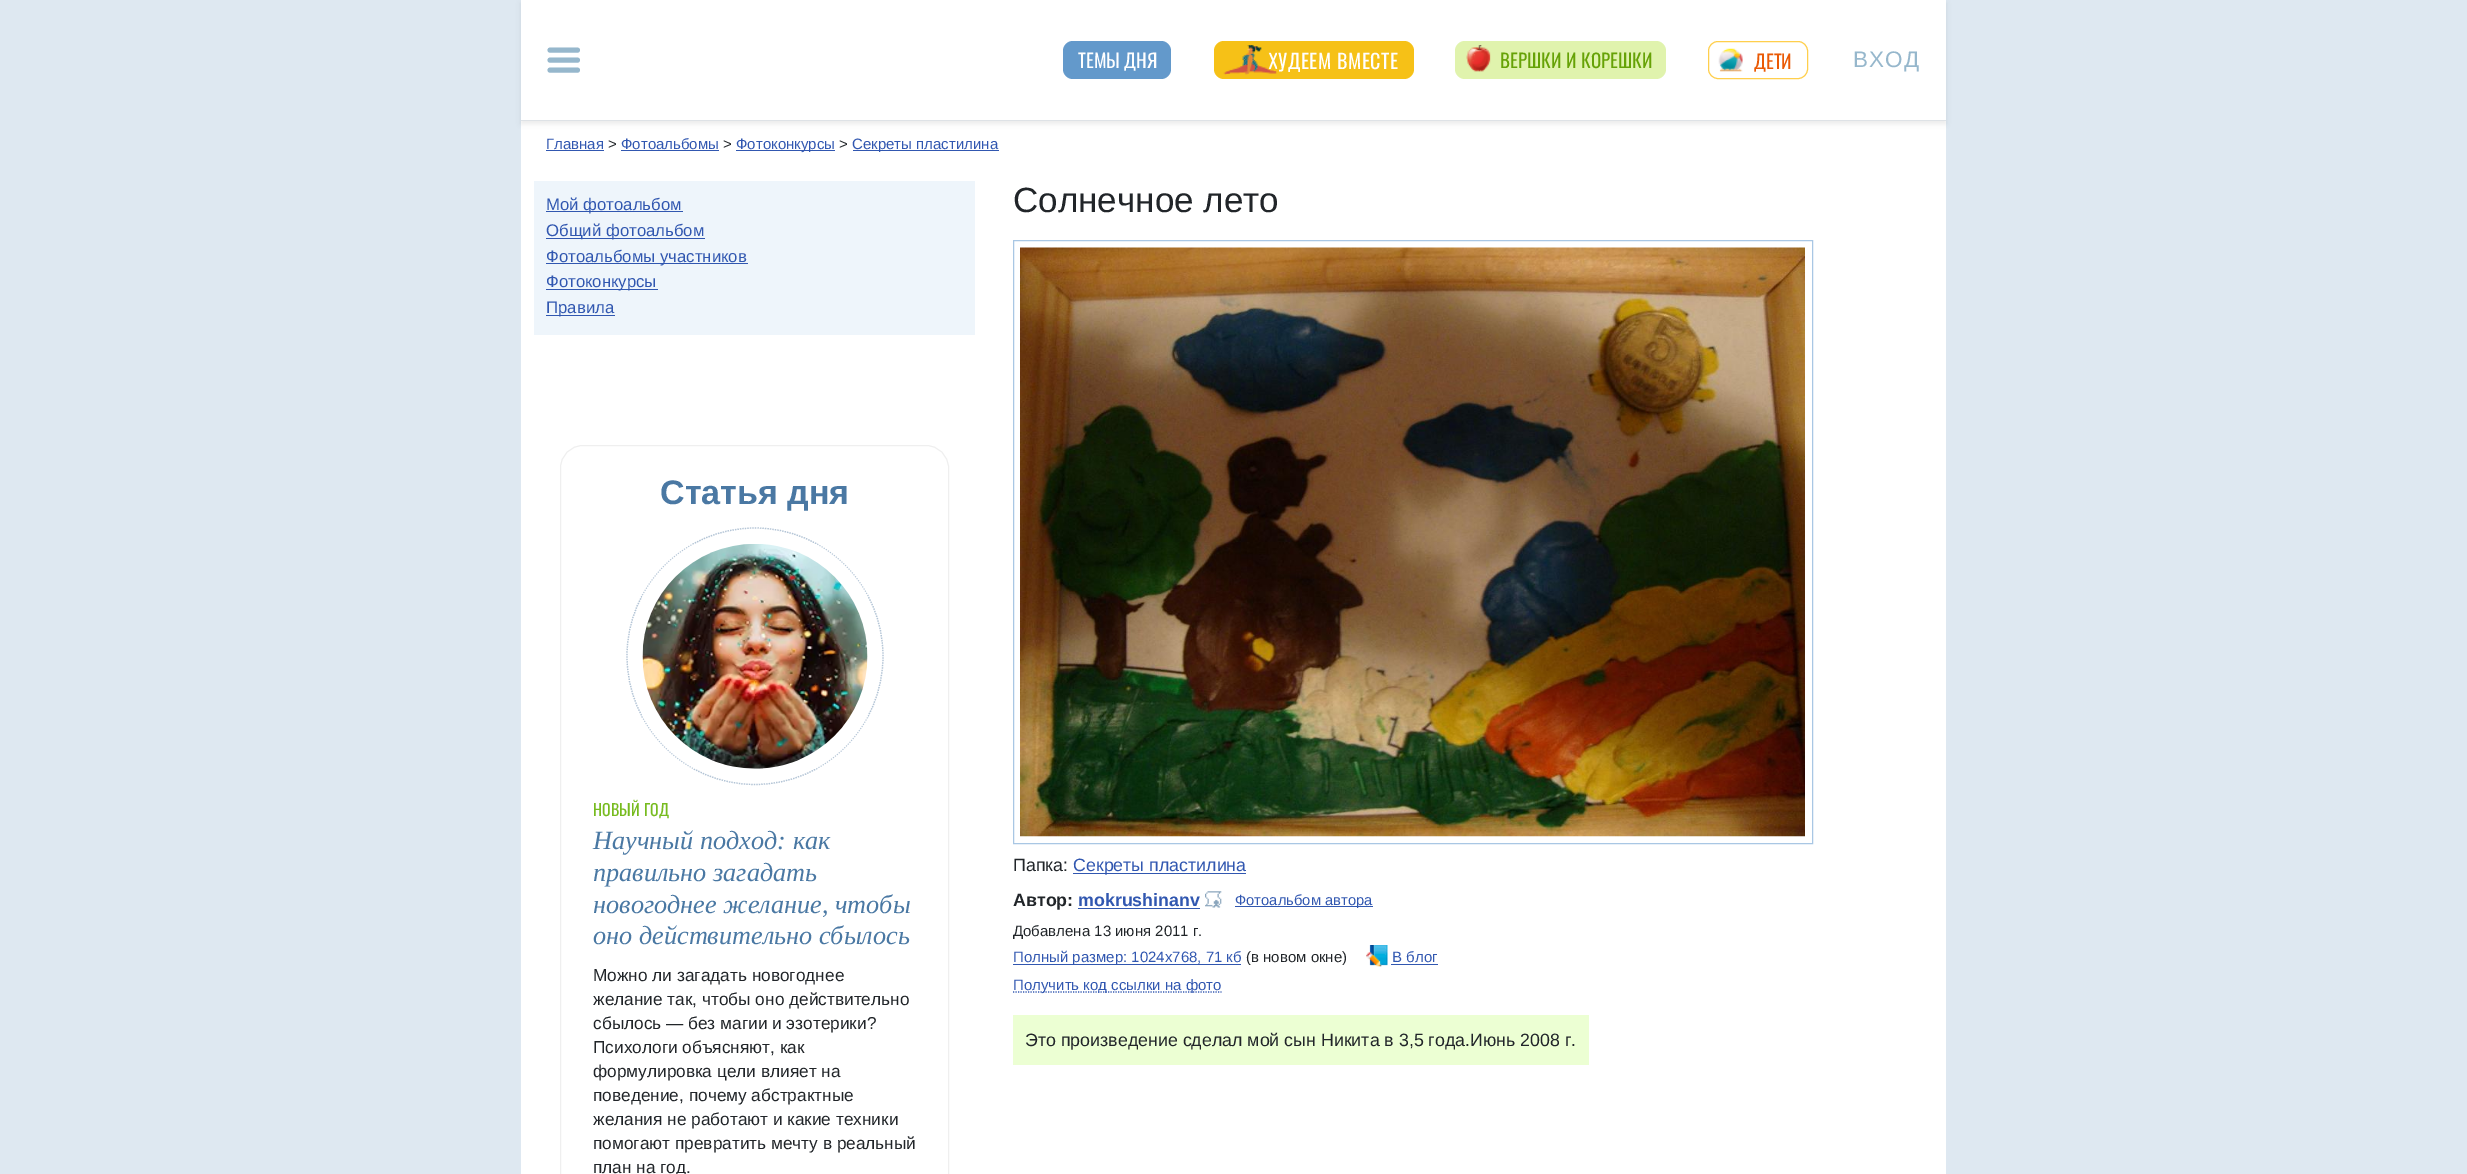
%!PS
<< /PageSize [2467 1174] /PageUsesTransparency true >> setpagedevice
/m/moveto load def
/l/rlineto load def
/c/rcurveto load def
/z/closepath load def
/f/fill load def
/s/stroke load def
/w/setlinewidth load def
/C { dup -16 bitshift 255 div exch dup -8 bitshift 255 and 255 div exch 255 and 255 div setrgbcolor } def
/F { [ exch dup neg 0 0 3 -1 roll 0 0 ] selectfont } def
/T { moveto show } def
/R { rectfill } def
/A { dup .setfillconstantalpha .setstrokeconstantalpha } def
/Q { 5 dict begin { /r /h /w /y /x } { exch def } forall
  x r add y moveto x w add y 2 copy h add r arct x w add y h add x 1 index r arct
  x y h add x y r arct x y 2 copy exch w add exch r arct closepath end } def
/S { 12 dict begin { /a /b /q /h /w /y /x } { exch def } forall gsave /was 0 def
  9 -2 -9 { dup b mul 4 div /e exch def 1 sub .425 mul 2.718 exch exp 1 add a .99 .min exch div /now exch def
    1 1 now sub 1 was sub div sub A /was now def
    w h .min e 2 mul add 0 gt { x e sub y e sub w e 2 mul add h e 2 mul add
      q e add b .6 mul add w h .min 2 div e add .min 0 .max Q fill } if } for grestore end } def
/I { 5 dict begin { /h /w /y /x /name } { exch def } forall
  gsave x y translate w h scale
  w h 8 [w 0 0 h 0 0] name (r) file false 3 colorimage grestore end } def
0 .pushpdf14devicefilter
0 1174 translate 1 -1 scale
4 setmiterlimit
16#DEE8F1 C
0 0 2467 1174 R
16#FFFFFF C
521 121 1425 1053 R
16#000000 C
521 3 1425 121 0 2.5 .07 S
16#FFFFFF C
521 0 1425 120 R
16#DEE2E6 C
521 120 1425 1 R
16#96B7CC C
5 w
1 setlinecap
550 50 m 27.5 0 l 550 60 m 27.5 0 l 550 70 m 27.5 0 l s
16#6399CB C
1063 41 108 38 10 Q f
/Oswald-Regular 19 F
16#FFFFFF C
(ТЕМЫ) 1078 68 T
(ДНЯ) 1124 68 T
16#F6C117 C
1214 41 200 38 10 Q f
/Oswald-Regular 20 F
16#FFFFFF C
1268 69 m .5 0 (ХУДЕЕМ) ashow
(1.rgb) 1223 45 54 30 I
1337 69 m .5 0 (ВМЕСТЕ) ashow
16#E0F3AD C
1455 41 211 38 10 Q f
(2.rgb) 1466 45 25 27 I
/Oswald-Regular 19 F
16#66A206 C
(ВЕРШКИ) 1500 68 T
(И) 1566 68 T
(КОРЕШКИ) 1581 68 T
16#FFCF4C C
1 w
0 setlinecap
1708.5 41.5 99 37 9.5 Q s
(3.rgb) 1718 48 25 24 I
16#EA5A06 C
(ДЕТИ) 1754 69 T
/LiberationSans-Regular 22.5 F
16#96B7CC C
1853 67 m 1 0 (ВХОД) ashow
/LiberationSans-Regular 15 F
16#3157B0 C
(Главная) 546 149 T
546 150 58 1 R
16#212529 C
(>) 608 149 T
16#3157B0 C
(Фотоальбомы) 621 149 T
621 150 98 1 R
16#212529 C
(>) 723 149 T
16#3157B0 C
736 150 99 1 R
(Фотоконкурсы) 736 149 T
16#212529 C
(>) 839 149 T
16#3157B0 C
853 150 146 1 R
(Секреты пластилина) 852 149 T
16#EEF5FB C
534 181 441 154 R
16#3157B0 C
546 211 137 1 R
/LiberationSans-Regular 16.75 F
(Мой фотоальбом) 546 210 T
546 238 159 1 R
(Общий фотоальбом) 546 236 T
546 263 202 1 R
(Фотоальбомы участников) 546 262 T
546 289 112 1 R
(Фотоконкурсы) 546 287 T
546 315 69 1 R
(Правила) 546 313 T
16#EFEFEF C
560.5 445.5 388 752 22.5 Q s
/LiberationSans-Bold 34 F
16#4A78A3 C
(Статья дня) 660 504 T
16#B4C5D6 C
1.2 w
[1.25 1.25] 0 setdash
755 528 m 71 0 128 57.5 128 128 c 0 71 -57 128.5 -128 128.5 c -71 0 -128 -57.5 -128 -128.5 c 0 -70.5 57 -128 128 -128 c z s
(4.rgb) 642 544 226 225 I
/Oswald-Regular 16 F
16#77BB1F C
(НОВЫЙ) 593 816 T
(ГОД) 644 816 T
/LiberationSerif-Italic 26.25 F
16#4A78A3 C
(Научный подход: как) 593 849 T
(правильно загадать) 593 881 T
(новогоднее желание, чтобы) 593 913 T
(оно действительно сбылось) 593 944 T
/LiberationSans-Regular 17.25 F
16#212529 C
(Можно ли загадать новогоднее) 593 981 T
(желание так, чтобы оно действительно) 593 1005 T
(сбылось — без магии и эзотерики?) 593 1029 T
(Психологи объясняют, как) 593 1053 T
(формулировка цели влияет на) 593 1077 T
(поведение, почему абстрактные) 593 1101 T
(желания не работают и какие техники) 593 1125 T
(помогают превратить мечту в реальный) 593 1149 T
(план на год.) 593 1173 T
/LiberationSans-Regular 35 F
(Солнечное лето) 1013 212 T
16#A9C7E4 C
1 w
[] 0 setdash
1013.5 240.5 799 603 rectstroke
(5.rgb) 1020 247 785 590 I
/LiberationSans-Regular 17.8 F
16#212529 C
(Папка:) 1013 871 T
16#3157B0 C
1073 873 173 1 R
(Секреты пластилина) 1073 871 T
/LiberationSans-Bold 17.8 F
16#212529 C
(Автор:) 1013 906 T
16#3157B0 C
(mokrushinanv) 1078 906 T
1078 908 122 1 R
(6.rgb) 1205 891 17 17 I
1235 906 138 1 R
/LiberationSans-Regular 14.75 F
(Фотоальбом автора) 1235 905 T
/LiberationSans-Regular 15 F
16#212529 C
(Добавлена 13 июня 2011 г.) 1013 936 T
16#3157B0 C
1013 964 228 1 R
(Полный размер: 1024х768, 71 кб) 1013 962 T
16#212529 C
(\(в новом окне\)) 1246 962 T
(7.rgb) 1366 945 22 22 I
16#3157B0 C
(В блог) 1392 962 T
1391 964 47 1 R
1.2 w
[1.25 1.25] 0 setdash
1013 992 m 208.5 0 l s
(Получить код ссылки на фото) 1013 990 T
16#ECFFD3 C
1013 1015 576 50 R
/LiberationSans-Regular 17.8 F
16#212529 C
(Это произведение сделал мой сын Никита в 3,5 года.Июнь 2008 г.) 1025 1046 T
.poppdf14devicefilter showpage
